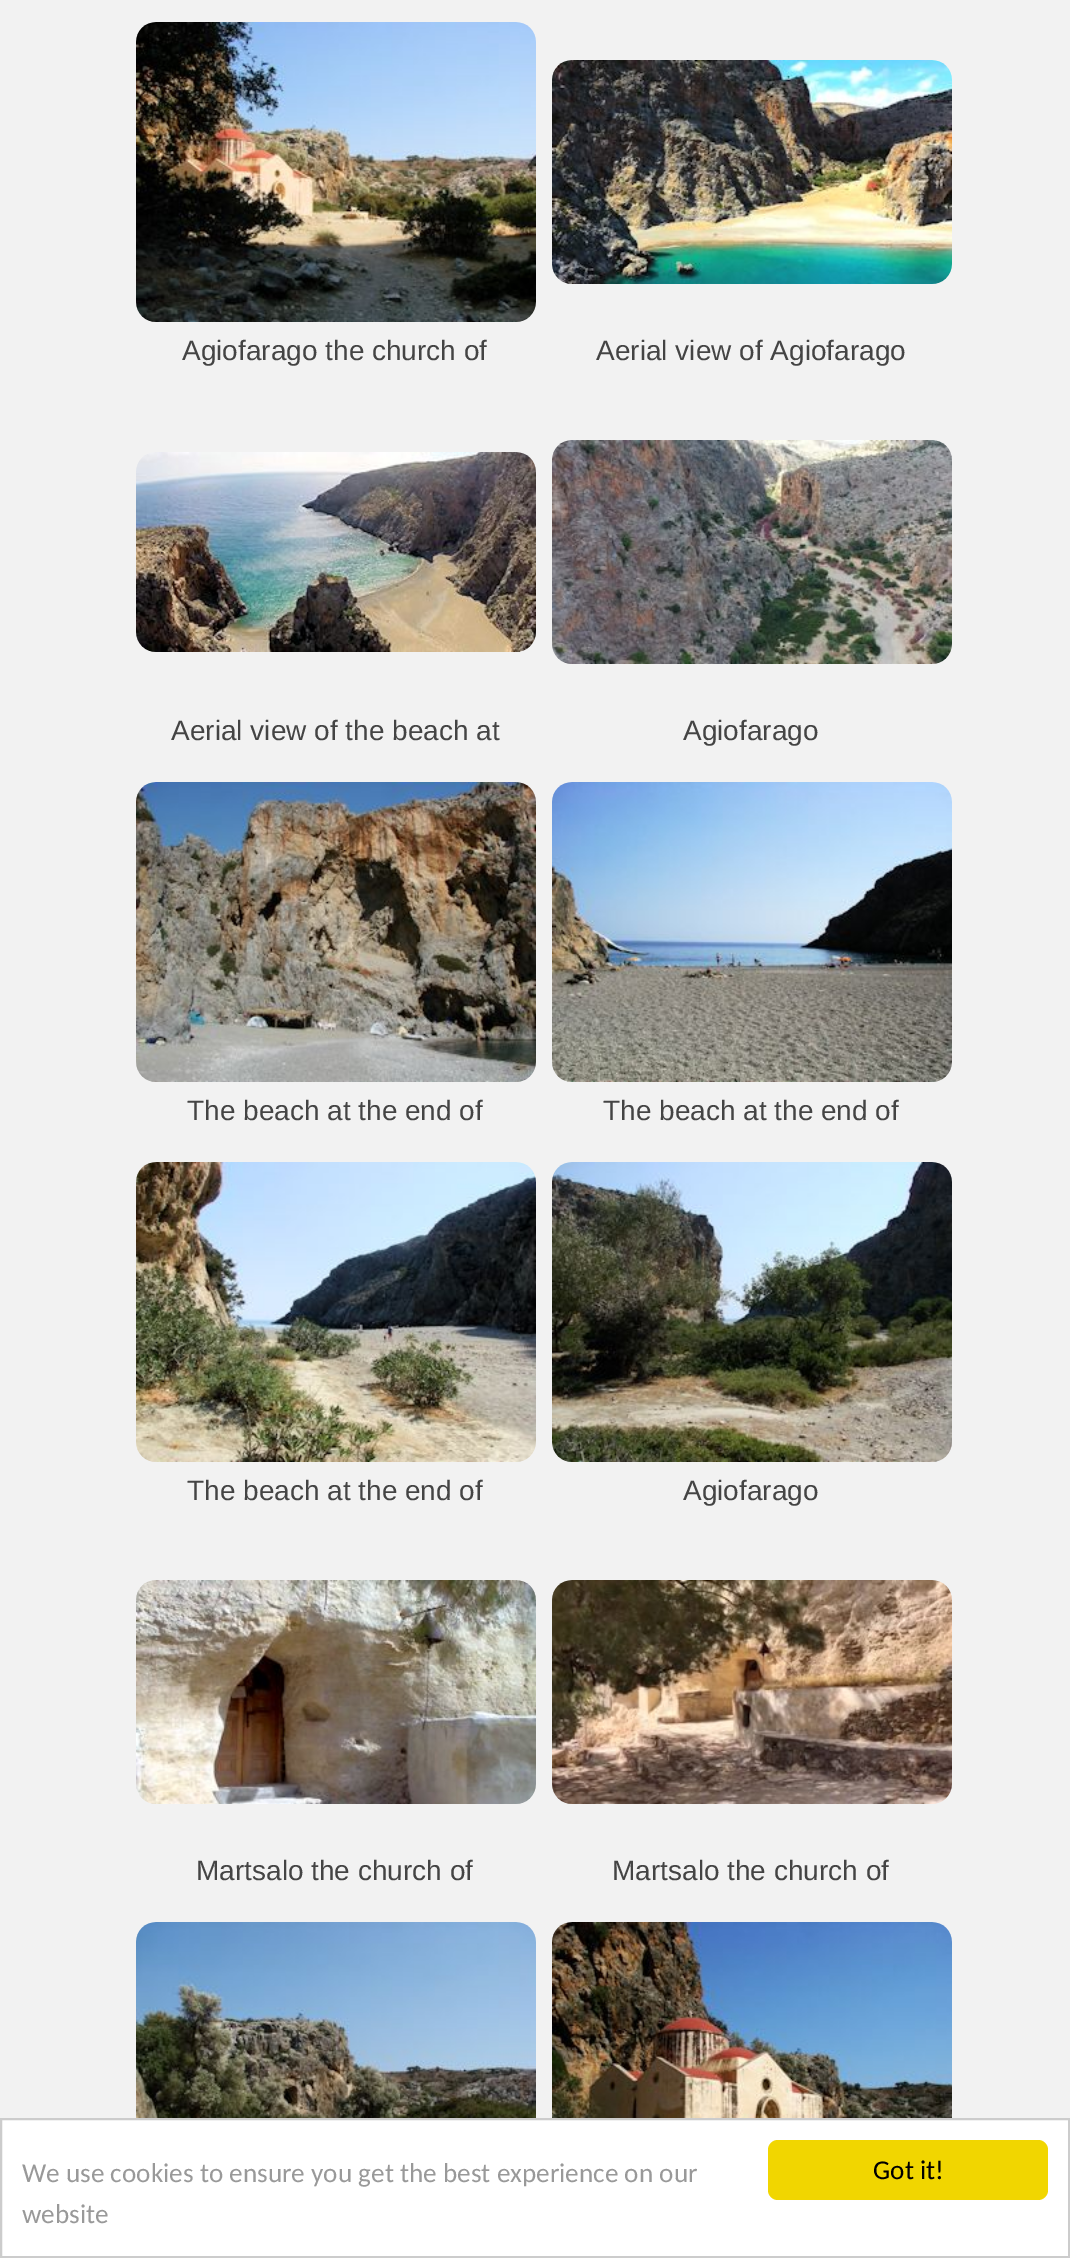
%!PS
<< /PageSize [1070 2258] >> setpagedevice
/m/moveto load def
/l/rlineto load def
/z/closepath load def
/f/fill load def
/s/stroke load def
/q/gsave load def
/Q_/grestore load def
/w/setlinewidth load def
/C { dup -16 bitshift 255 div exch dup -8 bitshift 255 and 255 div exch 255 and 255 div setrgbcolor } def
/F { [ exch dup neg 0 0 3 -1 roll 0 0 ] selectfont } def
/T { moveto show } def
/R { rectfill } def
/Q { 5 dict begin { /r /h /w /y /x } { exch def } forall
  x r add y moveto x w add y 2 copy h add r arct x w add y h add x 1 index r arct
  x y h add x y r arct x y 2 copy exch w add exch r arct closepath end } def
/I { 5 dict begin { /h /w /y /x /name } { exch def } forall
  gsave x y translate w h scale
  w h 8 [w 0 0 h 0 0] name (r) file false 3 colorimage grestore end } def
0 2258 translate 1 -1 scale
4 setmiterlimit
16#F2F2F2 C
0 0 1070 2258 R
(1.rgb) 136 22 400 300 I
/LiberationSans-Regular 28 F
16#444444 C
(Agiofarago the church of) 182 360 T
(2.rgb) 552 60 400 224 I
(Aerial view of Agiofarago) 596 360 T
(3.rgb) 136 452 400 200 I
(Aerial view of the beach at) 171 740 T
(4.rgb) 552 440 400 224 I
(Agiofarago) 683 740 T
(5.rgb) 136 782 400 300 I
(The beach at the end of) 187 1120 T
(6.rgb) 552 782 400 300 I
(The beach at the end of) 603 1120 T
(7.rgb) 136 1162 400 300 I
(The beach at the end of) 187 1500 T
(8.rgb) 552 1162 400 300 I
(Agiofarago) 683 1500 T
(9.rgb) 136 1580 400 224 I
(Martsalo the church of) 196 1880 T
(10.rgb) 552 1580 400 224 I
(Martsalo the church of) 612 1880 T
(11.rgb) 136 1922 400 196 I
(12.rgb) 552 1922 400 196 I
16#FFFFFF C
1 2119 m 1068 0 l 0 138 l -1068 0 l z q f Q_
16#CCCCCC C
2 w
s
/Carlito-Regular 27.2 F
16#999999 C
(We use cookies to ensure you get the best experience on our) 22 2182 T
(website) 22 2223 T
16#F1D600 C
768 2140 280 60 10 Q f
16#000000 C
(Got it!) 873 2179 T
showpage
